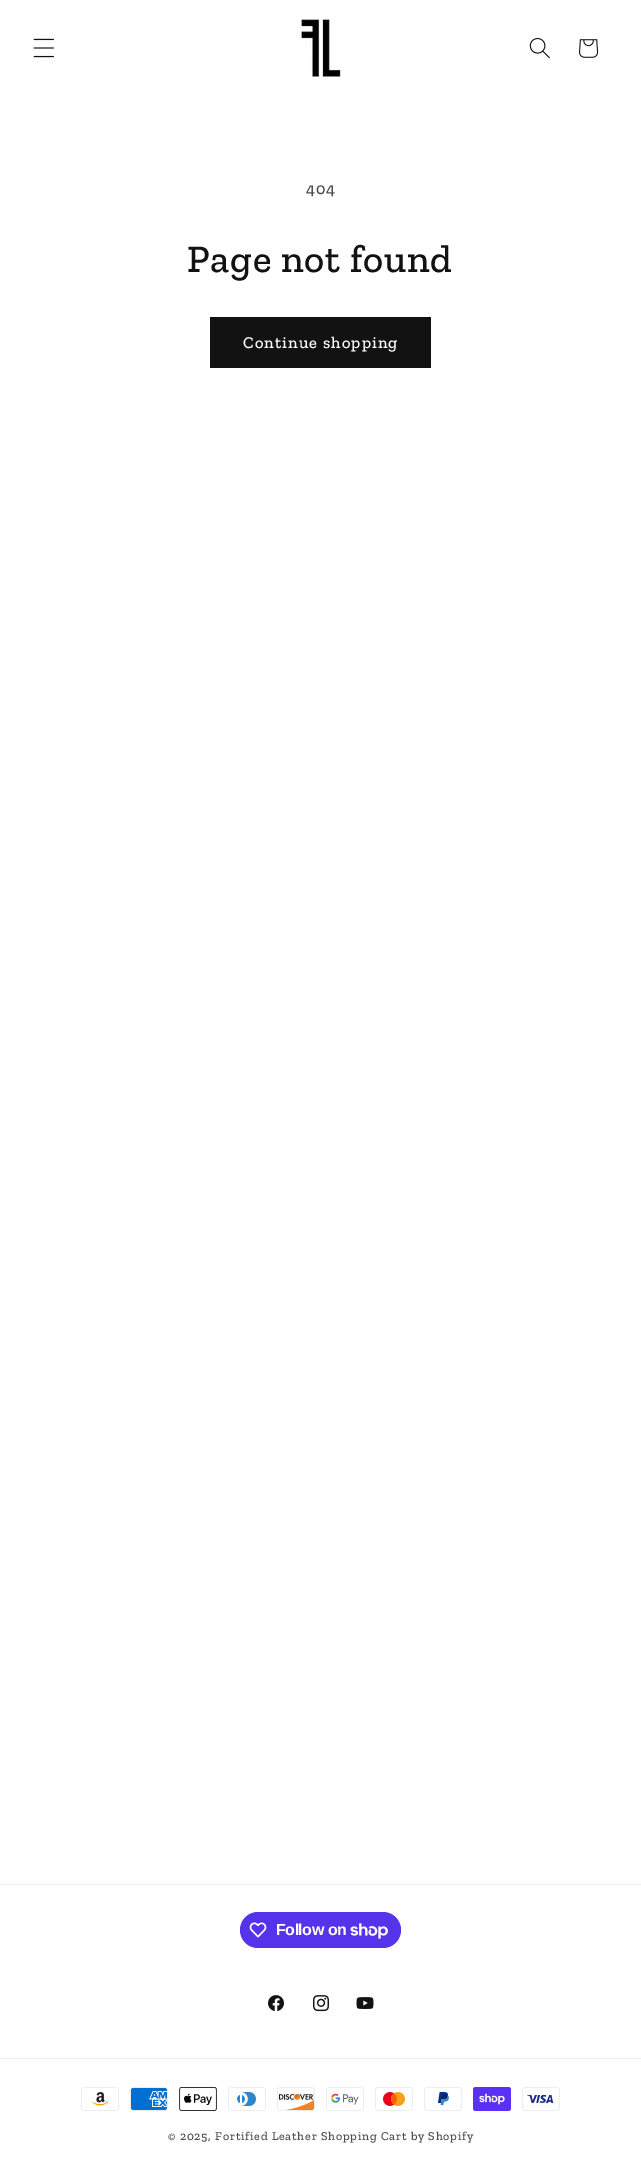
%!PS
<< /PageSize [641 2174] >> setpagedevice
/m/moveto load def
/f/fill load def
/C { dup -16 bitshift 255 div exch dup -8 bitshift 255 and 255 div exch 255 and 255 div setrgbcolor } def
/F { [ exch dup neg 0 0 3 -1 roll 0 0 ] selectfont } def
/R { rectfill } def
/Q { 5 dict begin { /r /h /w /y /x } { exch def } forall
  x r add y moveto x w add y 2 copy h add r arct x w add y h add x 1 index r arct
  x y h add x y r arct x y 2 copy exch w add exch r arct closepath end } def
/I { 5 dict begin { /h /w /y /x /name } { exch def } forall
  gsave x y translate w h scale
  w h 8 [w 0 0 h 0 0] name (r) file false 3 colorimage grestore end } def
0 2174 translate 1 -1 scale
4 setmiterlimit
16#FFFFFF C
0 0 641 2174 R
(1.rgb) 33 38 21 20 I
(2.rgb) 301 19 40 58 I
(3.rgb) 529 37 21 22 I
(4.rgb) 579 39 20 19 I
/ZillaSlab-Medium 16.5 F
16#4D4D4D C
306 194 m .5 0 (404) ashow
/ZillaSlab-Medium 39 F
16#121212 C
187 272 m .75 0 (Page not found) ashow
210 317 221 51 R
/ZillaSlab-Medium 16.5 F
16#FFFFFF C
243 348 m 1.1 0 (Continue shopping) ashow
16#ECECEC C
0 1884 641 1 R
16#5433EB C
240 1912 161 36 18 Q f
(5.rgb) 249 1922 18 16 I
/LiberationSans-Bold 16 F
16#FFFFFF C
276 1935 m -.5 0 (Follow on) ashow
(6.rgb) 350 1923 38 16 I
(7.rgb) 268 1995 16 16 I
(8.rgb) 313 1995 16 17 I
(9.rgb) 356 1997 18 12 I
16#ECECEC C
0 2058 641 1 R
(10.rgb) 81 2087 38 24 I
(11.rgb) 130 2087 38 24 I
(12.rgb) 179 2087 38 24 I
(13.rgb) 228 2087 38 24 I
(14.rgb) 277 2087 38 24 I
(15.rgb) 326 2087 38 24 I
(16.rgb) 375 2087 38 24 I
(17.rgb) 424 2087 38 24 I
(18.rgb) 473 2087 38 24 I
(19.rgb) 522 2087 38 24 I
/ZillaSlab-Medium 12.1 F
16#4D4D4D C
168 2140 m .77 0 (© 2025, Fortified Leather Shopping Cart by Shopify) ashow
showpage
